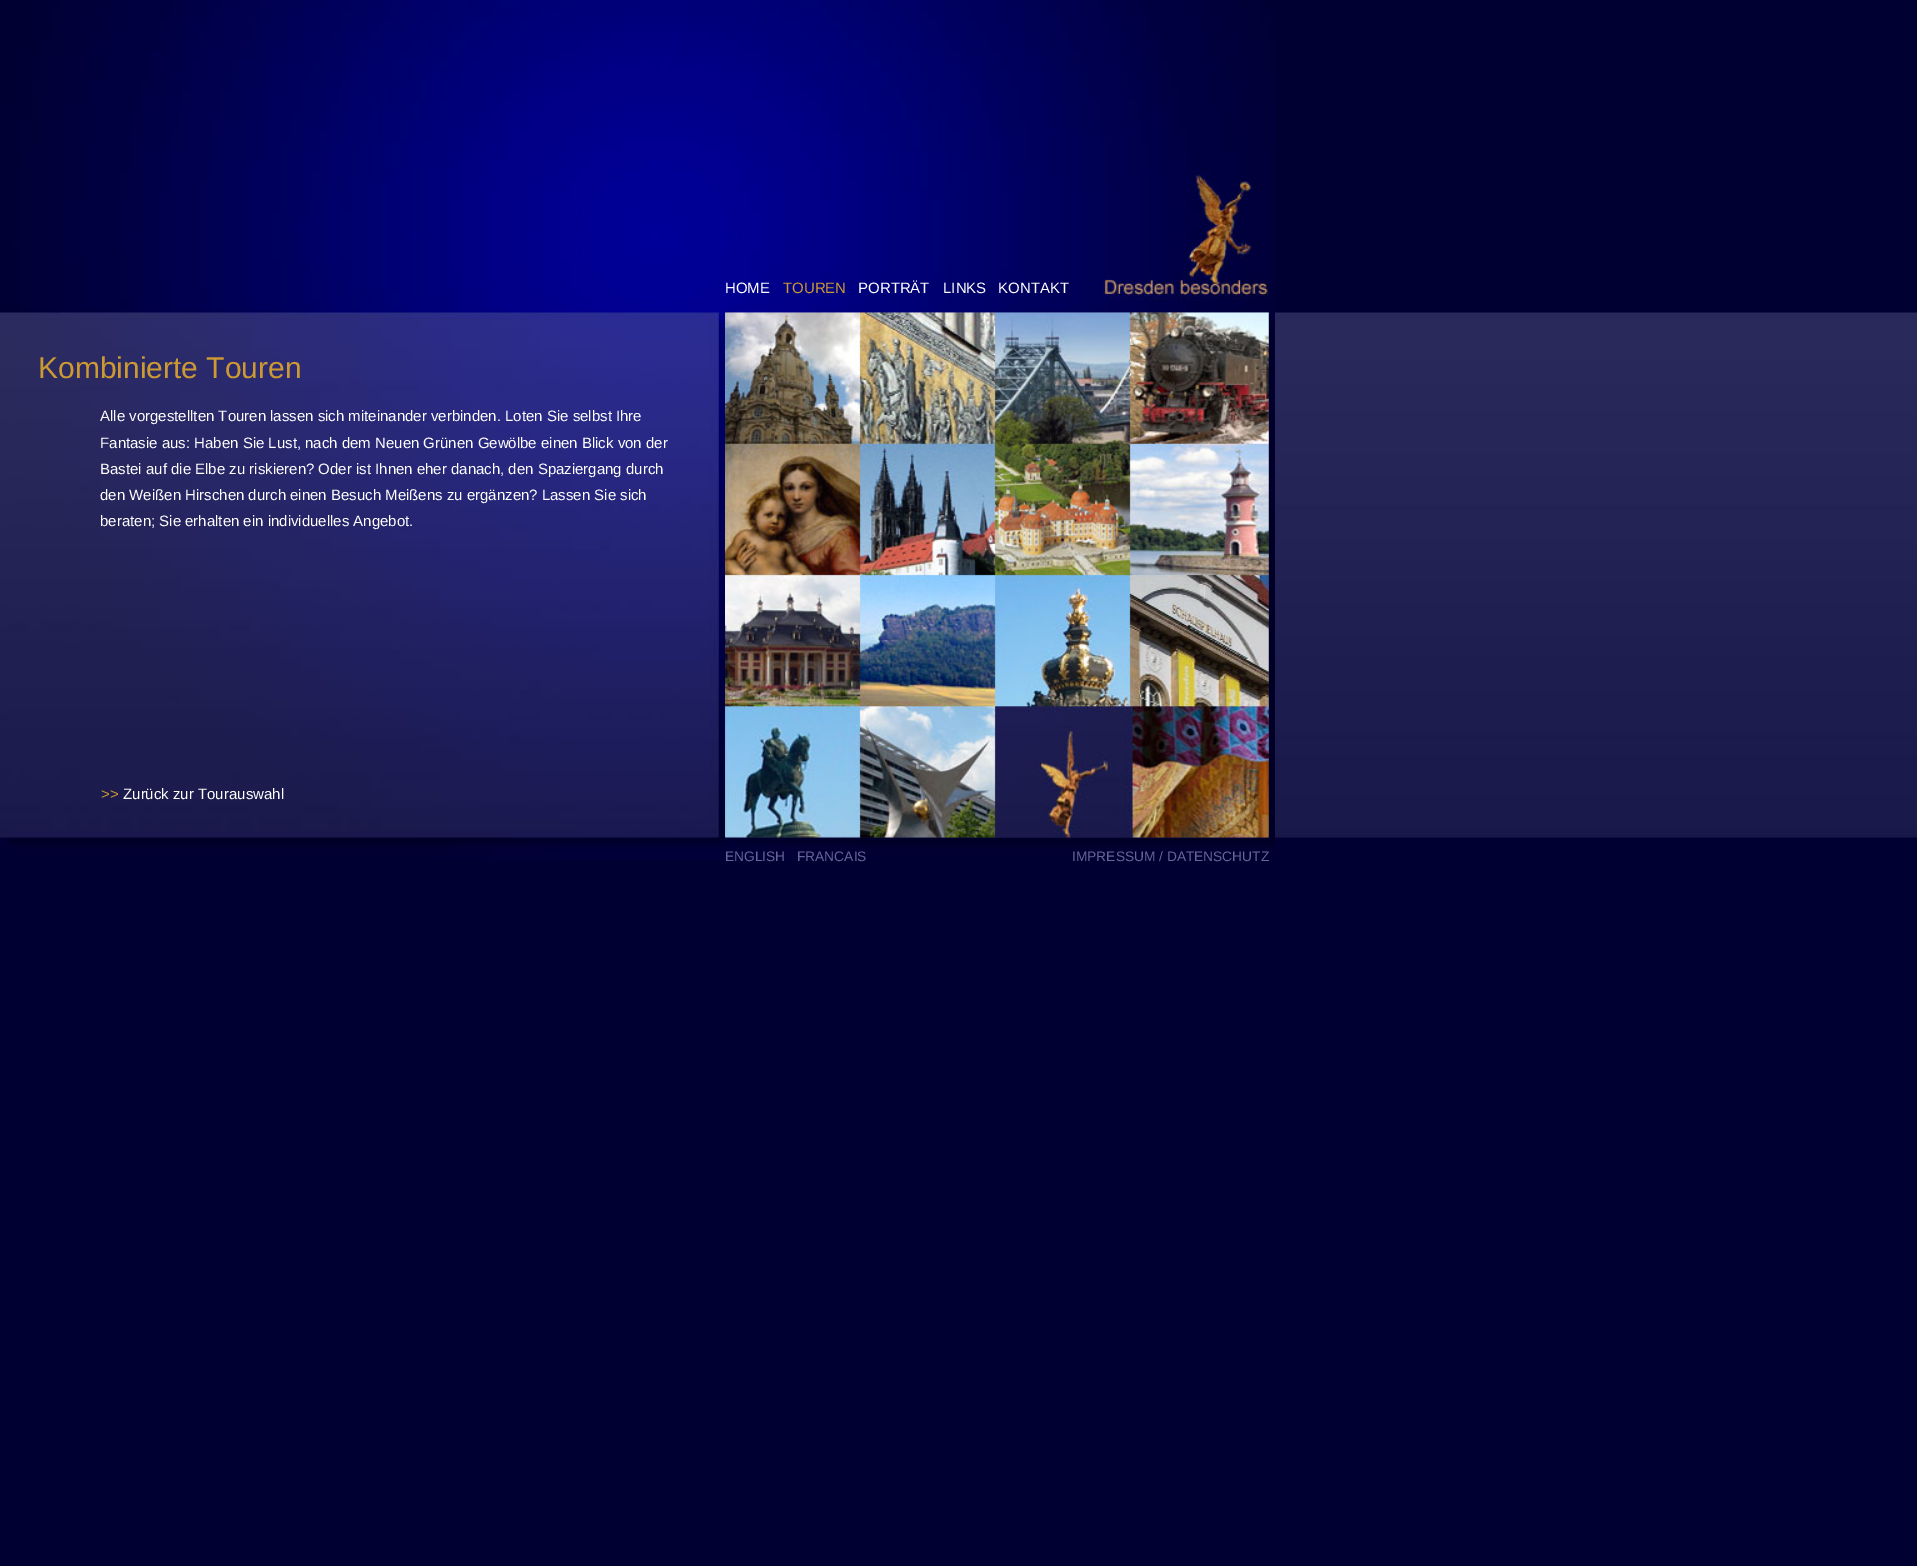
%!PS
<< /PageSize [1917 1566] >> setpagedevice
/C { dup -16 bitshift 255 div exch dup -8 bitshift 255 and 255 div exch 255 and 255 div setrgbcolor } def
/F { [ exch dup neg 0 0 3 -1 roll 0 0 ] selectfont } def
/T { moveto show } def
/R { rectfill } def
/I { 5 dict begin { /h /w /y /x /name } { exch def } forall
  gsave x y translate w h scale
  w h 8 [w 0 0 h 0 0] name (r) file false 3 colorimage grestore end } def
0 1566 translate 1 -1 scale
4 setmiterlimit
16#000033 C
0 0 1917 1566 R
(1.rgb) 0 0 1275 860 I
/LiberationSans-Regular 15 F
16#FFFFFF C
(HOME) 725 293 T
16#CC9933 C
(TOUREN) 783 293 T
16#FFFFFF C
(PORTRÄT) 858 293 T
(LINKS) 943 293 T
(KONTAKT) 998 293 T
/LiberationSans-Regular 30 F
16#CC9933 C
(Kombinierte Touren) 38 378 T
/LiberationSans-Regular 15 F
16#FFFFFF C
(Alle vorgestellten Touren lassen sich miteinander verbinden. Loten Sie selbst Ihre) 100 421 T
(Fantasie aus: Haben Sie Lust, nach dem Neuen Grünen Gewölbe einen Blick von der) 100 448 T
(Bastei auf die Elbe zu riskieren? Oder ist Ihnen eher danach, den Spaziergang durch) 100 474 T
(den Weißen Hirschen durch einen Besuch Meißens zu ergänzen? Lassen Sie sich) 100 500 T
(beraten; Sie erhalten ein individuelles Angebot.) 100 526 T
(2.rgb) 725 312 544 526 I
(3.rgb) 1275 312 642 526 I
16#CC9933 C
(>>) 101 799 T
16#FFFFFF C
(Zurück zur Tourauswahl) 123 799 T
/LiberationSans-Regular 13.75 F
16#666699 C
(ENGLISH) 725 861 T
(FRANCAIS) 797 861 T
(IMPRESSUM / DATENSCHUTZ) 1072 861 T
showpage
